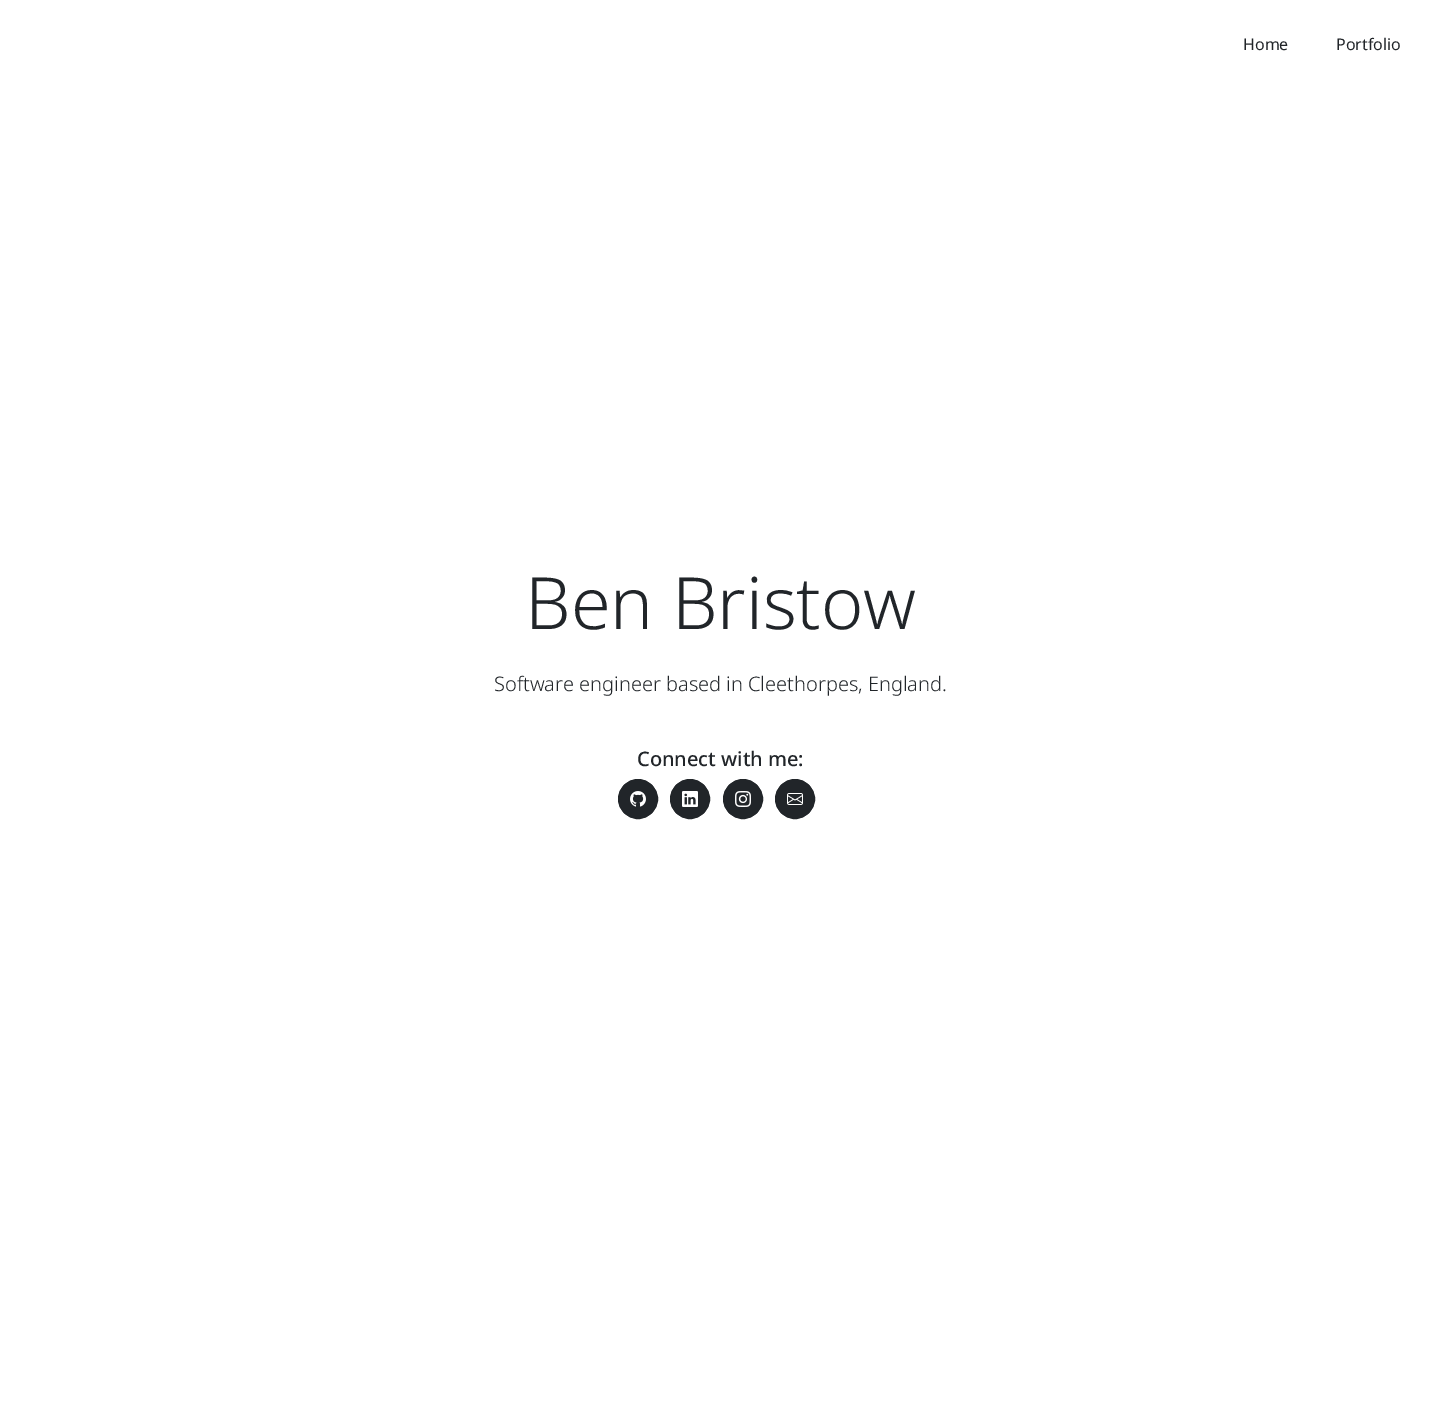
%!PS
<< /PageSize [1441 1425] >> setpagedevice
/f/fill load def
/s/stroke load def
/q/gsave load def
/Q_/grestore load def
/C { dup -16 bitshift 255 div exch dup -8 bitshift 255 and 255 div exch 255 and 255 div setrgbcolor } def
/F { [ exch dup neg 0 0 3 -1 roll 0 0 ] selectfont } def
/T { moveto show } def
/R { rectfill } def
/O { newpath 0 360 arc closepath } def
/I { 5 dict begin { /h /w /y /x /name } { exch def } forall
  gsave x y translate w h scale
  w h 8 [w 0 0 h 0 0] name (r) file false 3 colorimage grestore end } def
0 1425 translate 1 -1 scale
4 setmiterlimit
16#FFFFFF C
0 0 1441 1425 R
/NotoSans-Regular 16 F
16#212529 C
(Home) 1243 50 T
(Portfolio) 1336 50 T
/NotoSans-Light 72 F
(Ben Bristow) 525 629 T
/NotoSans-Light 20 F
(Software engineer based in Cleethorpes, England.) 494 691 T
/NotoSans-Medium 20 F
(Connect with me:) 637 766 T
638 799 19.5 O q f Q_
s
(1.rgb) 630 791 16 16 I
690 799 19.5 O q f Q_
s
(2.rgb) 682 791 16 16 I
743 799 19.5 O q f Q_
s
(3.rgb) 735 791 16 16 I
795 799 19.5 O q f Q_
s
(4.rgb) 787 793 16 12 I
showpage
